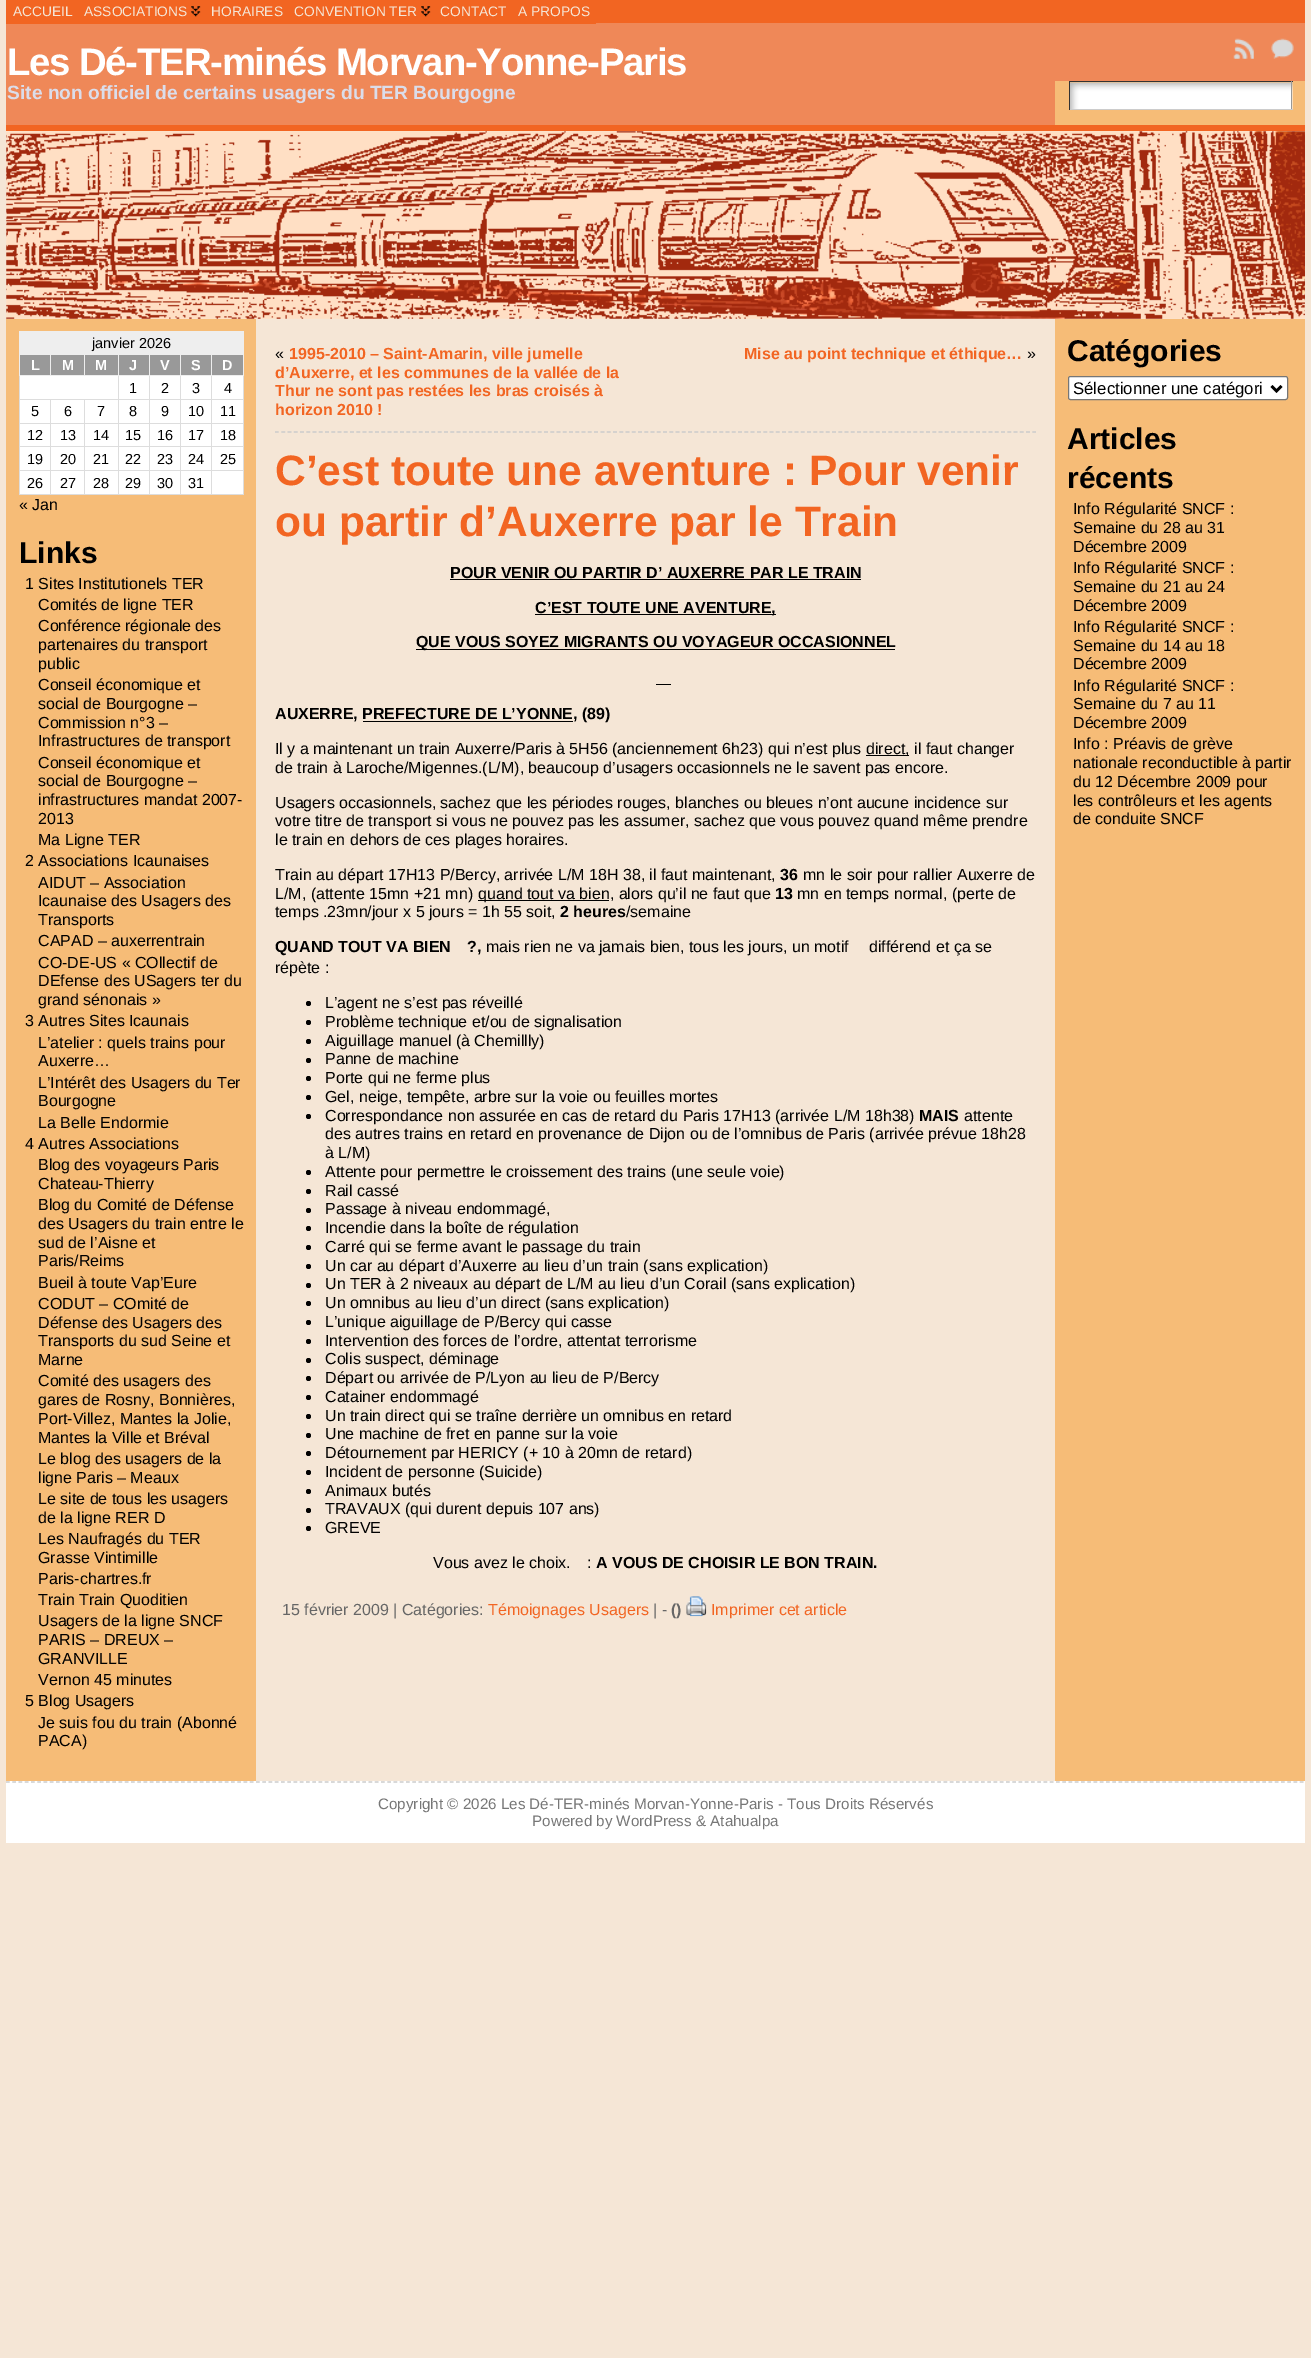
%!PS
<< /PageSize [1311 2358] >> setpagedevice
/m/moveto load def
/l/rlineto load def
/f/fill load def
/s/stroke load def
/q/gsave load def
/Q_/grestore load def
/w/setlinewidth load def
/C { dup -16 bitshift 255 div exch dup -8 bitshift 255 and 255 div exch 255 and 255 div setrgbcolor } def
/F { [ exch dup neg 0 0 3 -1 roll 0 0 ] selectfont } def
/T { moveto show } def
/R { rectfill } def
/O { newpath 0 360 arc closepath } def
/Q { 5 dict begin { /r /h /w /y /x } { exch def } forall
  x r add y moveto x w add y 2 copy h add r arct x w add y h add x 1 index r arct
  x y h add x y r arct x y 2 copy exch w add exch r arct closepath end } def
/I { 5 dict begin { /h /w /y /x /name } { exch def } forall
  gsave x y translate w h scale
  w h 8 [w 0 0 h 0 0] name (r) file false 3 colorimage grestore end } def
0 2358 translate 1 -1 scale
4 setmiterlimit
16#F5E6D6 C
0 0 1311 2358 R
16#F26522 C
596 0 709 23 R
16#EF8858 C
6 23 1299 102 R
16#F26522 C
6 0 590 24 R
/LiberationSans-Regular 13.75 F
16#F5E6D6 C
(ACCUEIL) 13 16 T
(1.rgb) 191 6 10 11 I
(ASSOCIATIONS) 84 16 T
(HORAIRES) 211 16 T
(1.rgb) 421 6 10 11 I
(CONVENTION TER) 294 16 T
(CONTACT) 440 16 T
(A PROPOS) 518 16 T
/LiberationSans-Bold 38.4 F
16#FFFFFF C
7 75 m -1.25 0 (Les Dé-TER-minés Morvan-Yonne-Paris) ashow
/LiberationSans-Bold 19.2 F
16#DBDDEA C
(Site non officiel de certains usagers du TER Bourgogne) 7 99 T
(2.rgb) 1233 38 21 21 I
(3.rgb) 1271 38 23 21 I
16#F6BC77 C
1055 81 250 44 R
(4.rgb) 1070 82 223 27 I
16#333333 C
1069 81 224 1 R
16#999999 C
1291 81 1 29 R
16#CCCCCC C
1069 109 224 1 R
16#333333 C
1069 81 1 29 R
16#F26522 C
6 125 1299 6 R
(5.rgb) 6 131 1299 188 I
16#F6BC77 C
6 319 250 1462 R
16#FFFFFF C
20 376 223 118 R
16#EEEEEE C
19 331 225 23 R
/LiberationSans-Regular 14.5 F
16#000000 C
(janvier 2026) 92 348 T
16#999999 C
20 355 30 20 R
16#EEEEEE C
211 354 33 1 R
16#999999 C
181 355 62 20 R
16#DDDDDD C
211 399 33 1 R
211 423 33 1 R
211 446 33 1 R
211 470 33 1 R
243 470 1 25 R
243 446 1 25 R
243 423 1 25 R
243 375 1 49 R
16#EEEEEE C
243 354 1 22 R
16#DDDDDD C
211 494 33 1 R
211 470 1 25 R
180 470 33 1 R
211 446 1 25 R
180 446 33 1 R
211 423 1 25 R
180 423 33 1 R
211 399 1 25 R
180 399 33 1 R
211 375 1 25 R
16#EEEEEE C
211 375 33 1 R
211 354 1 22 R
180 354 33 1 R
16#DDDDDD C
180 494 33 1 R
180 470 1 25 R
149 470 32 1 R
180 446 1 25 R
149 446 32 1 R
180 423 1 25 R
149 423 32 1 R
180 399 1 25 R
149 399 32 1 R
180 375 1 25 R
16#EEEEEE C
180 375 33 1 R
180 354 1 22 R
149 354 32 1 R
16#DDDDDD C
149 494 32 1 R
149 470 1 25 R
118 470 32 1 R
149 446 1 25 R
118 446 32 1 R
149 423 1 25 R
118 423 32 1 R
149 399 1 25 R
118 399 32 1 R
149 375 1 25 R
16#EEEEEE C
149 375 32 1 R
149 354 1 22 R
118 354 32 1 R
16#DDDDDD C
118 494 32 1 R
118 470 1 25 R
84 470 35 1 R
118 446 1 25 R
84 446 35 1 R
118 423 1 25 R
84 423 35 1 R
118 399 1 25 R
84 399 35 1 R
118 375 1 25 R
16#EEEEEE C
118 375 32 1 R
118 354 1 22 R
84 354 35 1 R
84 375 35 1 R
84 354 1 22 R
50 354 35 1 R
50 375 35 1 R
50 354 1 22 R
19 354 32 1 R
16#DDDDDD C
84 494 35 1 R
84 470 1 25 R
50 470 35 1 R
84 446 1 25 R
50 446 35 1 R
84 423 1 25 R
50 423 35 1 R
84 399 1 25 R
50 399 35 1 R
50 494 35 1 R
50 470 1 25 R
19 470 32 1 R
50 446 1 25 R
19 446 32 1 R
50 423 1 25 R
19 423 32 1 R
50 399 1 25 R
19 399 32 1 R
19 494 32 1 R
19 470 1 25 R
19 446 1 25 R
19 423 1 25 R
19 375 1 49 R
16#EEEEEE C
19 375 32 1 R
19 354 1 22 R
/LiberationSans-Bold 14.5 F
16#FFFFFF C
(L) 31 370 T
16#999999 C
51 355 33 20 R
16#FFFFFF C
(M) 62 370 T
16#999999 C
85 355 33 20 R
16#FFFFFF C
(M) 95 370 T
16#999999 C
119 355 30 20 R
16#FFFFFF C
(J) 129 370 T
16#999999 C
150 355 30 20 R
16#FFFFFF C
(V) 160 370 T
(S) 191 370 T
(D) 222 370 T
/LiberationSans-Regular 14.5 F
16#000000 C
(1) 129 393 T
(2) 161 393 T
(3) 192 393 T
(4) 224 393 T
(5) 31 416 T
(6) 64 416 T
(7) 97 416 T
(8) 129 416 T
(9) 161 416 T
(10) 188 416 T
(11) 220 416 T
(12) 27 440 T
(13) 60 440 T
(14) 93 440 T
(15) 125 440 T
(16) 157 440 T
(17) 188 440 T
(18) 220 440 T
(19) 27 464 T
(20) 60 464 T
(21) 93 464 T
(22) 125 464 T
(23) 157 464 T
(24) 188 464 T
(25) 220 464 T
(26) 27 488 T
(27) 60 488 T
(28) 93 488 T
(29) 125 488 T
(30) 157 488 T
(31) 188 488 T
/LiberationSans-Regular 16 F
(« Jan) 19 510 T
/LiberationSans-Bold 30 F
(Links) 19 563 T
/LiberationSans-Regular 16 F
(1 Sites Institutionels TER) 25 589 T
(Comités de ligne TER) 38 610 T
(Conférence régionale des) 38 631 T
(partenaires du transport) 38 650 T
(public) 38 669 T
(Conseil économique et) 38 690 T
(social de Bourgogne –) 38 709 T
(Commission n°3 –) 38 728 T
(Infrastructures de transport) 38 746 T
(Conseil économique et) 38 768 T
(social de Bourgogne –) 38 786 T
(infrastructures mandat 2007-) 38 805 T
(2013) 38 824 T
(Ma Ligne TER) 38 845 T
(2 Associations Icaunaises) 25 866 T
(AIDUT – Association) 38 888 T
(Icaunaise des Usagers des) 38 906 T
(Transports) 38 925 T
(CAPAD – auxerrentrain) 38 946 T
(CO-DE-US « COllectif de) 38 968 T
(DEfense des USagers ter du) 38 986 T
(grand sénonais ») 38 1005 T
(3 Autres Sites Icaunais) 25 1026 T
(L’atelier : quels trains pour) 38 1048 T
(Auxerre…) 38 1066 T
(L’Intérêt des Usagers du Ter) 38 1088 T
(Bourgogne) 38 1106 T
(La Belle Endormie) 38 1128 T
(4 Autres Associations) 25 1149 T
(Blog des voyageurs Paris) 38 1170 T
(Chateau-Thierry) 38 1189 T
(Blog du Comité de Défense) 38 1210 T
(des Usagers du train entre le) 38 1229 T
(sud de l’Aisne et) 38 1248 T
(Paris/Reims) 38 1266 T
(Bueil à toute Vap’Eure) 38 1288 T
(CODUT – COmité de) 38 1309 T
(Défense des Usagers des) 38 1328 T
(Transports du sud Seine et) 38 1346 T
(Marne) 38 1365 T
(Comité des usagers des) 38 1386 T
(gares de Rosny, Bonnières,) 38 1405 T
(Port-Villez, Mantes la Jolie,) 38 1424 T
(Mantes la Ville et Bréval) 38 1443 T
(Le blog des usagers de la) 38 1464 T
(ligne Paris – Meaux) 38 1483 T
(Le site de tous les usagers) 38 1504 T
(de la ligne RER D) 38 1523 T
(Les Naufragés du TER) 38 1544 T
(Grasse Vintimille) 38 1563 T
(Paris-chartres.fr) 38 1584 T
(Train Train Quoditien) 38 1605 T
(Usagers de la ligne SNCF) 38 1626 T
(PARIS – DREUX –) 38 1645 T
(GRANVILLE) 38 1664 T
(Vernon 45 minutes) 38 1685 T
(5 Blog Usagers) 25 1706 T
(Je suis fou du train \(Abonné) 38 1728 T
(PACA\)) 38 1746 T
16#CCCCCC C
1.2 w
[3.75 2.51] 0 setdash
275 432 m 761 0 l s
16#000000 C
(«) 275 359 T
/LiberationSans-Bold 16 F
16#F26522 C
(1995-2010 – Saint-Amarin, ville jumelle) 289 359 T
(d’Auxerre, et les communes de la vallée de la) 275 378 T
(Thur ne sont pas restées les bras croisés à) 275 396 T
(horizon 2010 !) 275 415 T
(Mise au point technique et éthique…) 744 359 T
/LiberationSans-Regular 16 F
16#000000 C
(») 1027 359 T
/LiberationSans-Bold 42.5 F
16#F26522 C
(C’est toute une aventure : Pour venir) 275 485 T
(ou partir d’Auxerre par le Train) 275 536 T
/LiberationSans-Bold 16 F
16#000000 C
(POUR VENIR OU PARTIR D’ AUXERRE PAR LE TRAIN) 450 578 T
450 579 411 1 R
535 614 241 1 R
(C’EST TOUTE UNE AVENTURE,) 535 613 T
416 649 479 1 R
(QUE VOUS SOYEZ MIGRANTS OU VOYAGEUR OCCASIONNEL) 416 647 T
656 684 15 1 R
(AUXERRE, PREFECTURE DE L’YONNE, \(89\)) 275 719 T
363 721 210 1 R
/LiberationSans-Regular 16 F
(Il y a maintenant un train Auxerre/Paris à 5H56 \(anciennement 6h23\) qui n’est plus) 275 754 T
866 755 43 1 R
(direct, il faut changer) 866 754 T
(de train à Laroche/Migennes.\(L/M\), beaucoup d’usagers occasionnels ne le savent pas encore.) 275 773 T
(Usagers occasionnels, sachez que les périodes rouges, blanches ou bleues n’ont aucune incidence sur) 275 808 T
(votre titre de transport si vous ne pouvez pas les assumer, sachez que vous pouvez quand même prendre) 275 826 T
(le train en dehors de ces plages horaires.) 275 845 T
(Train au départ 17H13 P/Bercy, arrivée L/M 18H 38, il faut maintenant,) 275 880 T
/LiberationSans-Bold 16 F
(36) 780 880 T
/LiberationSans-Regular 16 F
(mn le soir pour rallier Auxerre de) 803 880 T
(L/M, \(attente 15mn +21 mn\)) 275 899 T
478 900 131 1 R
(quand tout va bien, alors qu’il ne faut que) 478 899 T
/LiberationSans-Bold 16 F
(13) 775 899 T
/LiberationSans-Regular 16 F
(mn en temps normal, \(perte de) 797 899 T
(temps .23mn/jour x 5 jours = 1h 55 soit,) 275 917 T
/LiberationSans-Bold 16 F
(2 heures) 560 917 T
/LiberationSans-Regular 16 F
(/semaine) 626 917 T
/LiberationSans-Bold 16 F
(QUAND TOUT VA BIEN) 275 952 T
(?,) 467 952 T
/LiberationSans-Regular 16 F
(mais rien ne va jamais bien, tous les jours, un motif) 486 952 T
(différend et ça se) 869 952 T
(répète :) 275 973 T
308.5 1003.5 2.5 O f
(L’agent ne s’est pas réveillé) 325 1008 T
308.5 1022.5 2.5 O f
(Problème technique et/ou de signalisation) 325 1027 T
308.5 1041.5 2.5 O f
(Aiguillage manuel \(à Chemillly\)) 325 1046 T
308.5 1060.5 2.5 O f
(Panne de machine) 325 1064 T
308.5 1078.5 2.5 O f
(Porte qui ne ferme plus) 325 1083 T
308.5 1097.5 2.5 O f
(Gel, neige, tempête, arbre sur la voie ou feuilles mortes) 325 1102 T
308.5 1116.5 2.5 O f
(Correspondance non assurée en cas de retard du Paris 17H13 \(arrivée L/M 18h38\)) 325 1121 T
/LiberationSans-Bold 16 F
(MAIS) 919 1121 T
/LiberationSans-Regular 16 F
(attente) 964 1121 T
(des autres trains en retard en provenance de Dijon ou de l’omnibus de Paris \(arrivée prévue 18h28) 325 1139 T
(à L/M\)) 325 1158 T
308.5 1172.5 2.5 O f
(Attente pour permettre le croissement des trains \(une seule voie\)) 325 1177 T
308.5 1191.5 2.5 O f
(Rail cassé) 325 1196 T
308.5 1210.5 2.5 O f
(Passage à niveau endommagé,) 325 1214 T
308.5 1228.5 2.5 O f
(Incendie dans la boîte de régulation) 325 1233 T
308.5 1247.5 2.5 O f
(Carré qui se ferme avant le passage du train) 325 1252 T
308.5 1266.5 2.5 O f
(Un car au départ d’Auxerre au lieu d’un train \(sans explication\)) 325 1271 T
308.5 1285.5 2.5 O f
(Un TER à 2 niveaux au départ de L/M au lieu d’un Corail \(sans explication\)) 325 1289 T
308.5 1303.5 2.5 O f
(Un omnibus au lieu d’un direct \(sans explication\)) 325 1308 T
308.5 1322.5 2.5 O f
(L’unique aiguillage de P/Bercy qui casse) 325 1327 T
308.5 1341.5 2.5 O f
(Intervention des forces de l’ordre, attentat terrorisme) 325 1346 T
308.5 1360.5 2.5 O f
(Colis suspect, déminage) 325 1364 T
308.5 1378.5 2.5 O f
(Départ ou arrivée de P/Lyon au lieu de P/Bercy) 325 1383 T
308.5 1397.5 2.5 O f
(Catainer endommagé) 325 1402 T
308.5 1416.5 2.5 O f
(Un train direct qui se traîne derrière un omnibus en retard) 325 1421 T
308.5 1435.5 2.5 O f
(Une machine de fret en panne sur la voie) 325 1439 T
308.5 1453.5 2.5 O f
(Détournement par HERICY \(+ 10 à 20mn de retard\)) 325 1458 T
308.5 1472.5 2.5 O f
(Incident de personne \(Suicide\)) 325 1477 T
308.5 1491.5 2.5 O f
(Animaux butés) 325 1496 T
308.5 1510.5 2.5 O f
(TRAVAUX \(qui durent depuis 107 ans\)) 325 1514 T
308.5 1528.5 2.5 O f
(GREVE) 325 1533 T
(Vous avez le choix.) 433 1568 T
(:) 587 1568 T
/LiberationSans-Bold 16 F
(A VOUS DE CHOISIR LE BON TRAIN.) 596 1568 T
/LiberationSans-Regular 16 F
16#666666 C
(15 février 2009 | Catégories:) 282 1615 T
16#F26522 C
(Témoignages Usagers) 488 1615 T
16#666666 C
(| -) 653 1615 T
/LiberationSans-Bold 16 F
(\(\)) 671 1615 T
(6.rgb) 686 1596 21 21 I
/LiberationSans-Regular 16 F
16#F26522 C
(Imprimer cet article) 711 1615 T
16#F6BC77 C
1055 319 250 1462 R
/LiberationSans-Bold 30 F
16#000000 C
(Catégories) 1067 361 T
16#FFFFFF C
1068.5 376.5 219 23 2 Q q f Q_
16#767676 C
1 w
[] 0 setdash
s
16#000000 C
2.5 w
1271.5 386 m 5 5 l 5 -5 l s
/LiberationSans-Regular 16.75 F
(Sélectionner une catégori) 1073 394 T
/LiberationSans-Bold 30 F
(Articles) 1067 449 T
(récents) 1067 488 T
/LiberationSans-Regular 16 F
(Info Régularité SNCF :) 1073 514 T
(Semaine du 28 au 31) 1073 533 T
(Décembre 2009) 1073 552 T
(Info Régularité SNCF :) 1073 573 T
(Semaine du 21 au 24) 1073 592 T
(Décembre 2009) 1073 611 T
(Info Régularité SNCF :) 1073 632 T
(Semaine du 14 au 18) 1073 651 T
(Décembre 2009) 1073 669 T
(Info Régularité SNCF :) 1073 691 T
(Semaine du 7 au 11) 1073 709 T
(Décembre 2009) 1073 728 T
(Info : Préavis de grève) 1073 749 T
(nationale reconductible à partir) 1073 768 T
(du 12 Décembre 2009 pour) 1073 787 T
(les contrôleurs et les agents) 1073 806 T
(de conduite SNCF) 1073 824 T
16#FFFFFF C
6 1781 1299 62 R
16#CCCCCC C
1.2 w
[3.75 2.5] 0 setdash
6 1782 m 1299 0 l s
/LiberationSans-Regular 15.2 F
16#777777 C
(Copyright © 2026 Les Dé-TER-minés Morvan-Yonne-Paris - Tous Droits Réservés) 378 1809 T
(Powered by WordPress & Atahualpa) 532 1826 T
showpage
